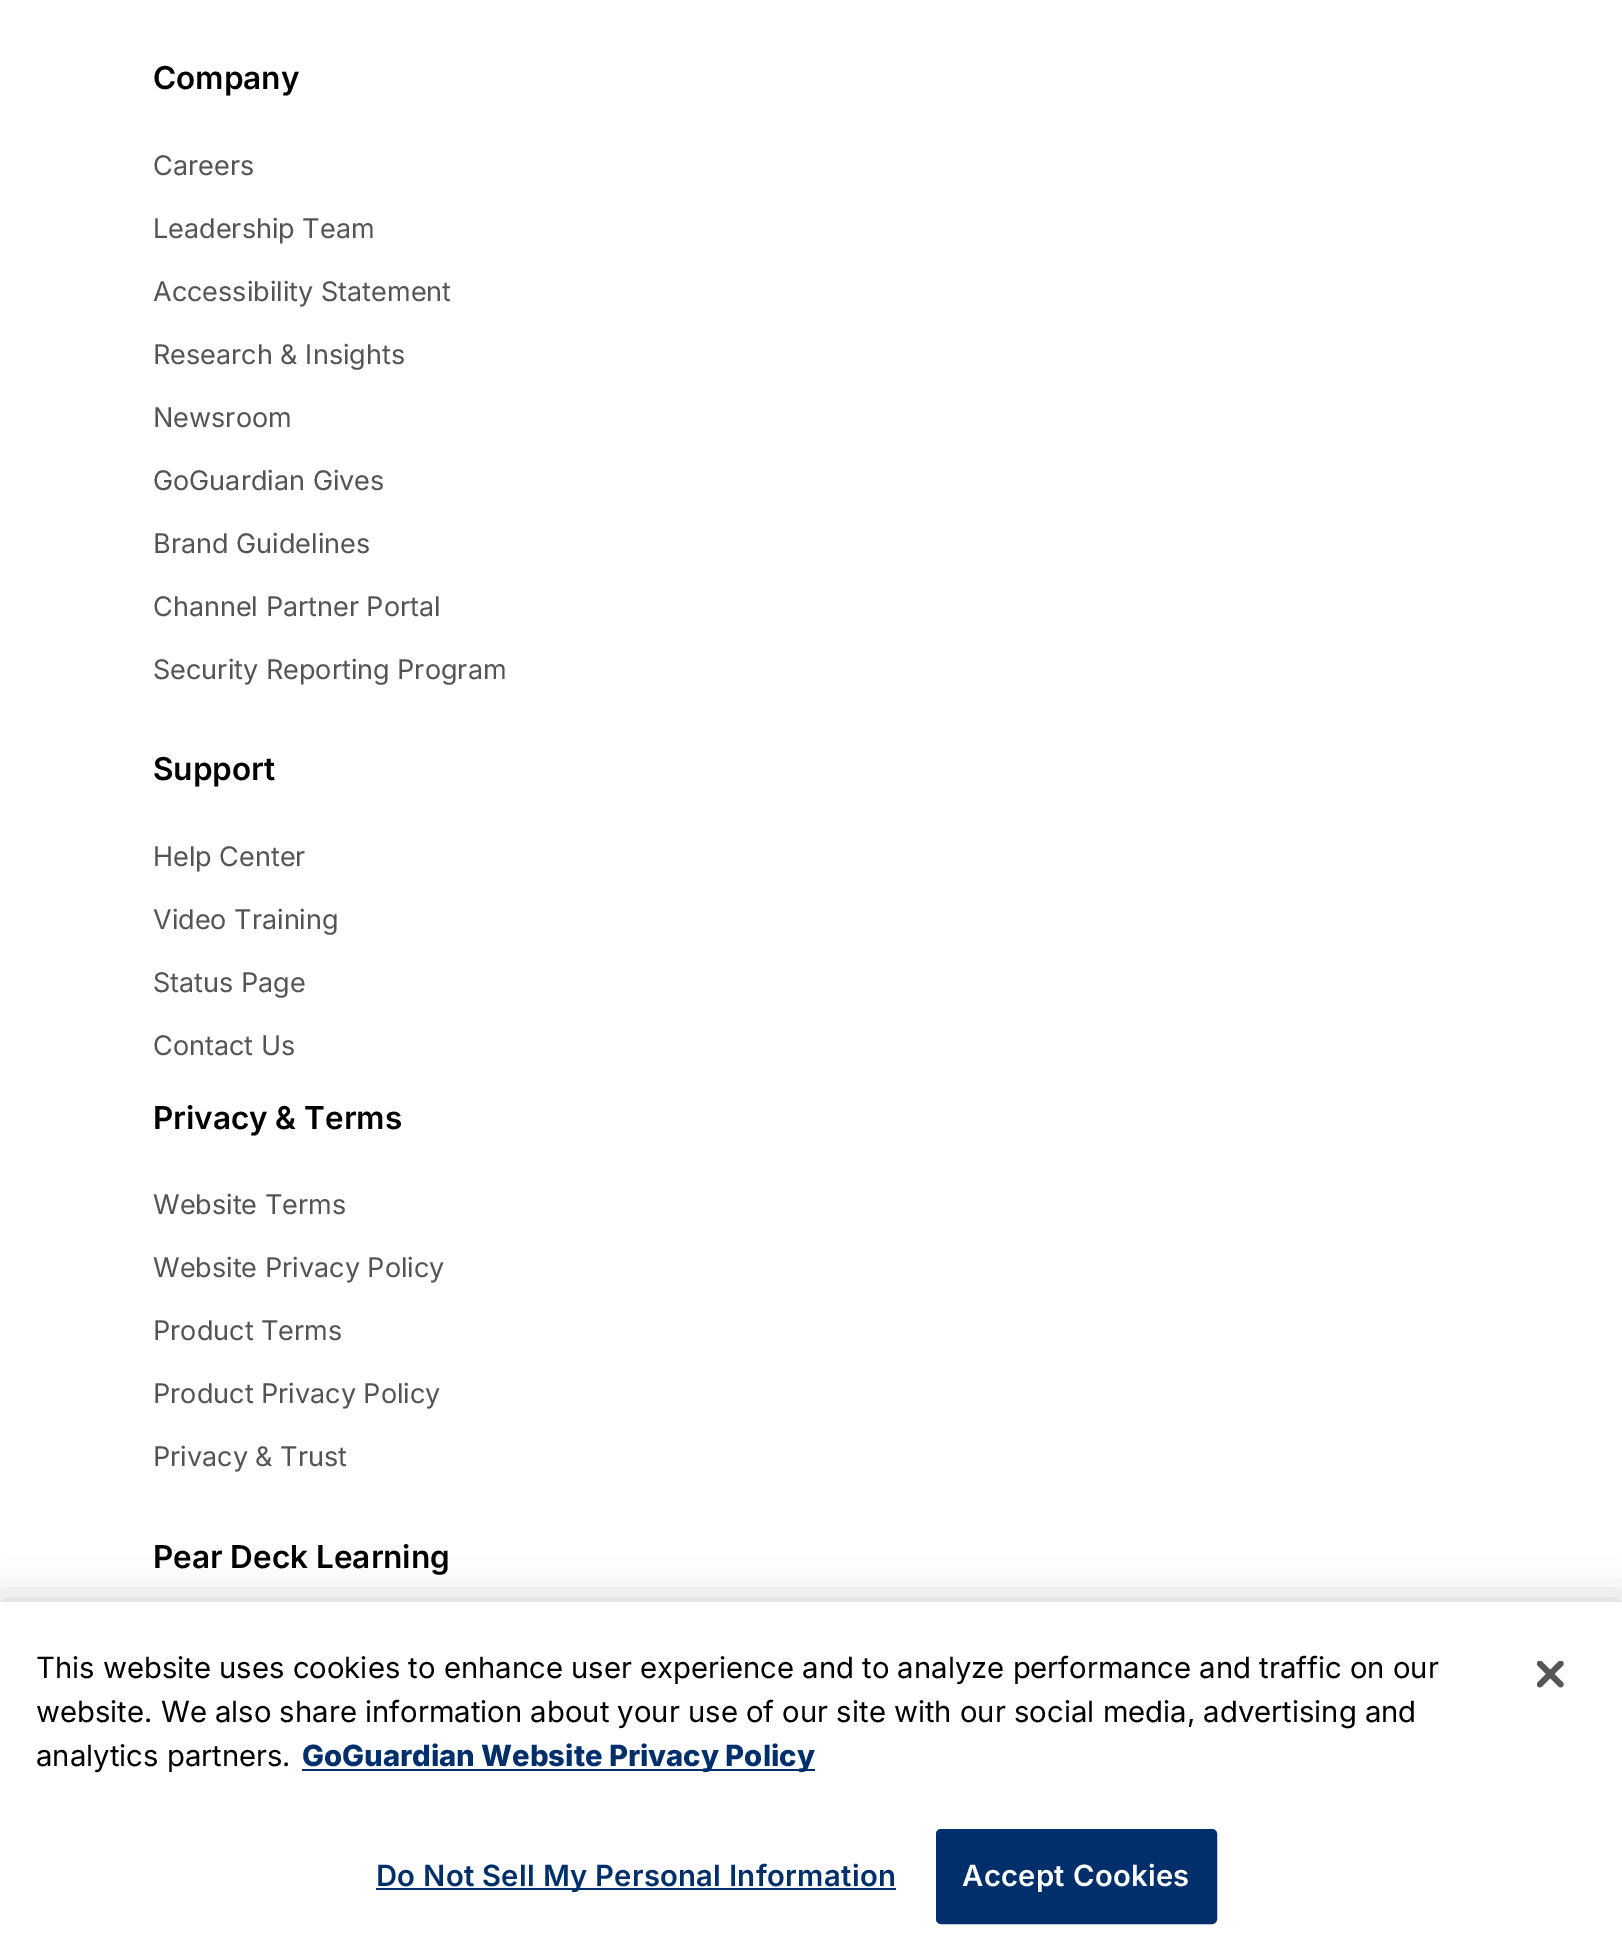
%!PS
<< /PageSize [1622 1959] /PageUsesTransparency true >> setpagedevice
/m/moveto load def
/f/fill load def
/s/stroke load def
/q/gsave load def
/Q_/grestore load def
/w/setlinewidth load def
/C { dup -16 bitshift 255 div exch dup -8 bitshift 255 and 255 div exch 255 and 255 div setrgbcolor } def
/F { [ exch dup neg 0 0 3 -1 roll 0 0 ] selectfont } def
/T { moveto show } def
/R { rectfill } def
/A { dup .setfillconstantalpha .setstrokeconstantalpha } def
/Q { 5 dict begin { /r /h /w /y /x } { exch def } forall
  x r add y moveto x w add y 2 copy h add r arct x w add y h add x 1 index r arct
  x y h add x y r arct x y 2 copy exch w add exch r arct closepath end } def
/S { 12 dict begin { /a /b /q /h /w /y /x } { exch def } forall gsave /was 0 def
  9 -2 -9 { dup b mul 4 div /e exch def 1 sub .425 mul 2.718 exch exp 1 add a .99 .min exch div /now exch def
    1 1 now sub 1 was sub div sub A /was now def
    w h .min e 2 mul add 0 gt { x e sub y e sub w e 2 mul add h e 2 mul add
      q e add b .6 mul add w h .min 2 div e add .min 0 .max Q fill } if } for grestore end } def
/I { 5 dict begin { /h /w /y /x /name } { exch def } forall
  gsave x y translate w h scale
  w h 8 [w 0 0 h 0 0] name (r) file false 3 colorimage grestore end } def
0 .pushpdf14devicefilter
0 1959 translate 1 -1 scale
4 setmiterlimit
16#FFFFFF C
0 0 1622 1959 R
/Inter-SemiBold 31.5 F
16#000000 C
(Company) 153 89 T
/Inter-Regular 27 F
16#545454 C
(Careers) 153 175 T
(Leadership Team) 153 238 T
(Accessibility Statement) 153 301 T
(Research & Insights) 153 364 T
(Newsroom) 153 427 T
(GoGuardian Gives) 153 490 T
(Brand Guidelines) 153 553 T
(Channel Partner Portal) 153 616 T
(Security Reporting Program) 153 679 T
/Inter-SemiBold 31.5 F
16#000000 C
(Support) 153 780 T
/Inter-Regular 27 F
16#545454 C
(Help Center) 153 866 T
(Video Training) 153 929 T
(Status Page) 153 992 T
(Contact Us) 153 1055 T
/Inter-SemiBold 31.5 F
16#000000 C
(Privacy & Terms) 153 1129 T
/Inter-Regular 27 F
16#545454 C
(Website Terms) 153 1214 T
(Website Privacy Policy) 153 1277 T
(Product Terms) 153 1340 T
(Product Privacy Policy) 153 1403 T
(Privacy & Trust) 153 1466 T
/Inter-SemiBold 31.5 F
16#000000 C
(Pear Deck Learning) 153 1568 T
0 1602 1622 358 0 20 .2 S
16#FFFFFF C
0 1602 1622 357 R
/Inter-Regular 29.25 F
16#000000 C
(This website uses cookies to enhance user experience and to analyze performance and traffic on our) 36 1678 T
(website. We also share information about your use of our site with our social media, advertising and) 36 1722 T
(analytics partners.) 36 1766 T
16#002F6C C
302 1769 513 2 R
/Inter-ExtraBold 29.25 F
(GoGuardian Website Privacy Policy) 302 1766 T
376 1888 520 2 R
/Inter-SemiBold 29.25 F
376 1886 m .3 0 (Do Not Sell My Personal Information) ashow
937 1830 279 93 4 Q q f Q_
2 w
s
16#FFFFFF C
962 1886 m .3 0 (Accept Cookies) ashow
(1.rgb) 1537 1661 27 27 I
.poppdf14devicefilter showpage
